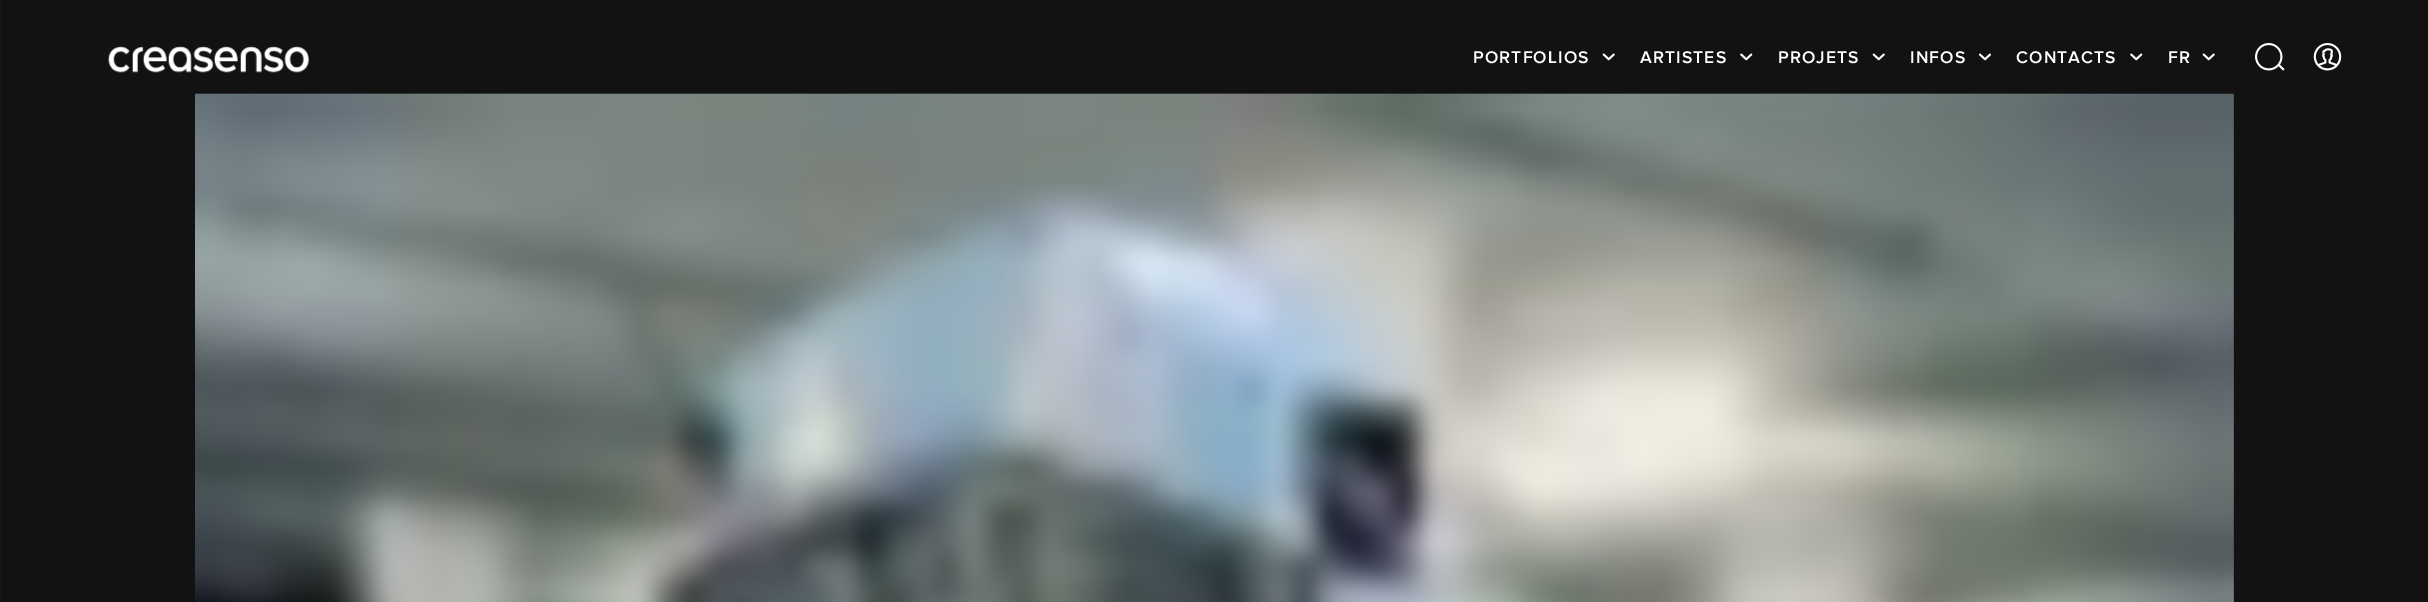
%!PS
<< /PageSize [2428 602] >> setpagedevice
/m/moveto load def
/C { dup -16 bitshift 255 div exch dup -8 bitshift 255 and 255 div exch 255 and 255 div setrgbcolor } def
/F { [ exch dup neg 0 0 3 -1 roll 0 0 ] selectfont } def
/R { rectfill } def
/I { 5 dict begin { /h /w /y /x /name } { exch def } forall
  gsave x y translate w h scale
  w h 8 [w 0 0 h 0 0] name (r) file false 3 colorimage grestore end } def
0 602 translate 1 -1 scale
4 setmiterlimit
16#181818 C
0 0 2428 602 R
16#121212 C
1 0 2427 602 R
(1.rgb) 195 93 2039 509 I
(2.rgb) 108 46 201 27 I
/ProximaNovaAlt-SemiBold 17.5 F
16#FFFFFF C
1473 63 m 1.1 0 (PORTFOLIOS) ashow
(3.rgb) 1602 53 13 8 I
1640 63 m 1.1 0 (ARTISTES) ashow
(4.rgb) 1740 53 13 8 I
1778 63 m 1.1 0 (PROJETS) ashow
(3.rgb) 1872 53 13 8 I
1910 63 m 1.1 0 (INFOS) ashow
(5.rgb) 1978 53 13 8 I
2016 63 m 1.1 0 (CONTACTS) ashow
(4.rgb) 2130 53 13 8 I
2168 63 m 1.1 0 (FR) ashow
(3.rgb) 2202 53 13 8 I
(6.rgb) 2255 43 30 28 I
(7.rgb) 2313 43 29 28 I
showpage
